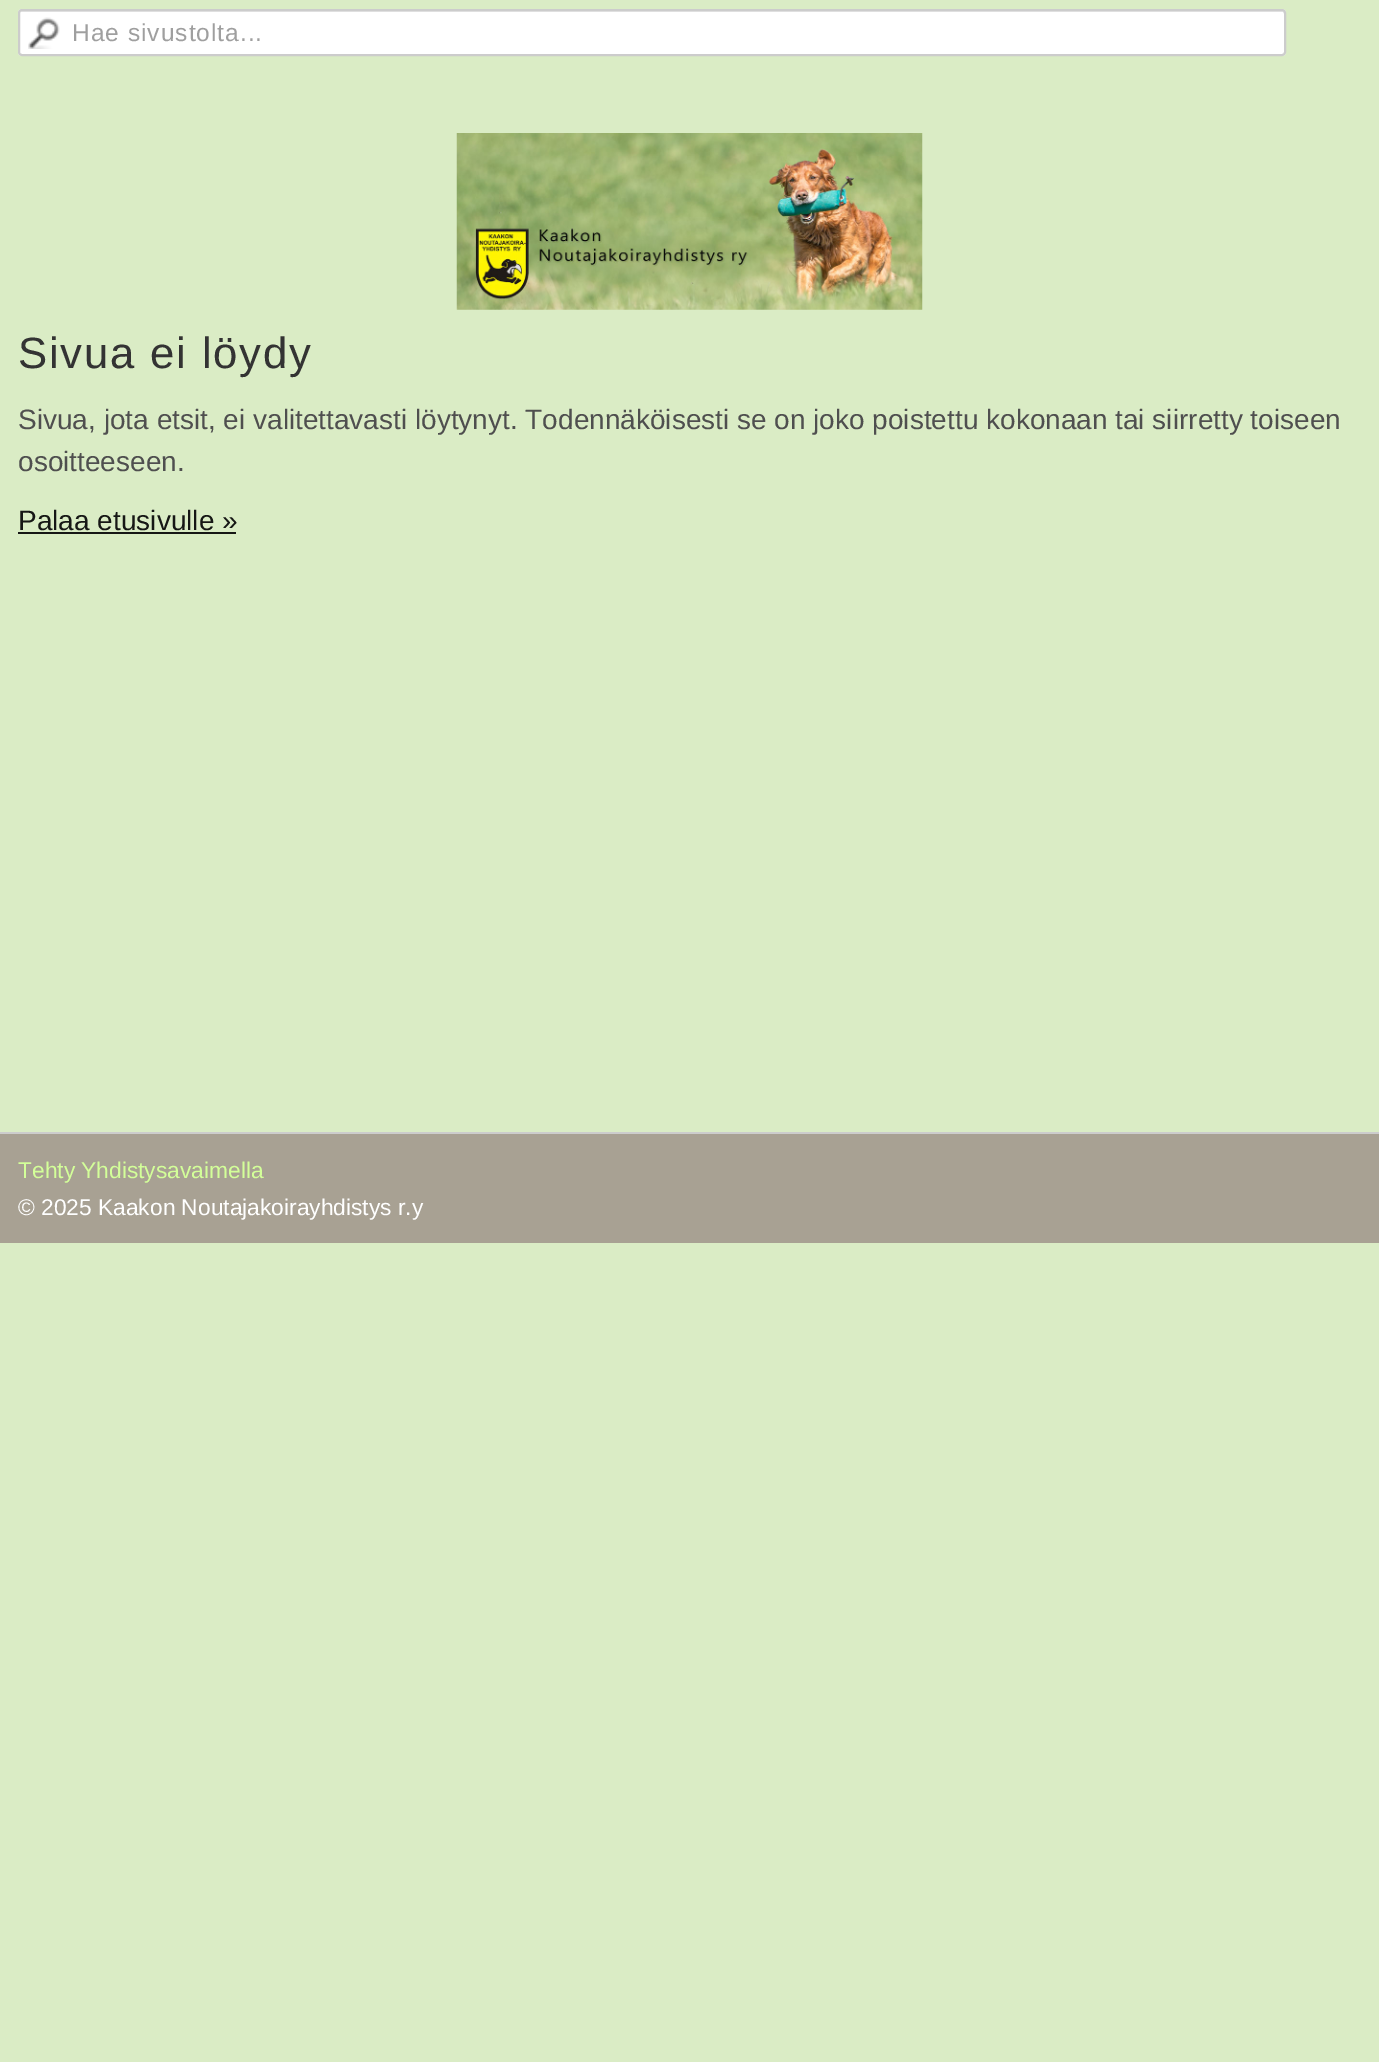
%!PS
<< /PageSize [1379 2062] >> setpagedevice
/m/moveto load def
/l/rlineto load def
/c/rcurveto load def
/z/closepath load def
/f/fill load def
/s/stroke load def
/w/setlinewidth load def
/C { dup -16 bitshift 255 div exch dup -8 bitshift 255 and 255 div exch 255 and 255 div setrgbcolor } def
/F { [ exch dup neg 0 0 3 -1 roll 0 0 ] selectfont } def
/T { moveto show } def
/R { rectfill } def
/Q { 5 dict begin { /r /h /w /y /x } { exch def } forall
  x r add y moveto x w add y 2 copy h add r arct x w add y h add x 1 index r arct
  x y h add x y r arct x y 2 copy exch w add exch r arct closepath end } def
/I { 5 dict begin { /h /w /y /x /name } { exch def } forall
  gsave x y translate w h scale
  w h 8 [w 0 0 h 0 0] name (r) file false 3 colorimage grestore end } def
0 2062 translate 1 -1 scale
4 setmiterlimit
16#DAECC5 C
0 0 1379 2062 R
16#FFFFFF C
18 9 1268 47 4 Q f
(1.rgb) 28 17 32 32 I
16#E6E6E6 C
21 12 m 1262 0 l 1 0 1 1 1 2 c 0 40 l 1 -1 1 -1 1 -2 c 0 -39 l 0 -1 -1 -2 -2 -2 c -1262 0 l -1 0 -2 1 -2 2 c 0 1 l 0 -1 1 -2 2 -2 c z f
16#CCCCCC C
2 w
19 10 1266 45 3 Q s
/LiberationSans-Regular 24.5 F
16#9F9F9F C
72 41 m 1 0 (Hae sivustolta...) ashow
(2.rgb) 456 133 467 177 I
/LiberationSans-Regular 43.75 F
16#333333 C
18 368 m 1.75 0 (Sivua ei löydy) ashow
/LiberationSans-Regular 28 F
16#4F4F4F C
(Sivua, jota etsit, ei valitettavasti löytynyt. Todennäköisesti se on joko poistettu kokonaan tai siirretty toiseen) 18 429 T
(osoitteeseen.) 18 471 T
16#161715 C
(Palaa etusivulle ») 18 530 T
18 532 218 2 R
16#A8A193 C
0 1134 1379 109 R
16#CCCCCC C
0 1132 1379 2 R
/LiberationSans-Regular 22.75 F
16#D3FF99 C
(Tehty Yhdistysavaimella) 18 1178 T
16#FFFFFF C
(© 2025 Kaakon Noutajakoirayhdistys r.y) 18 1215 T
showpage
